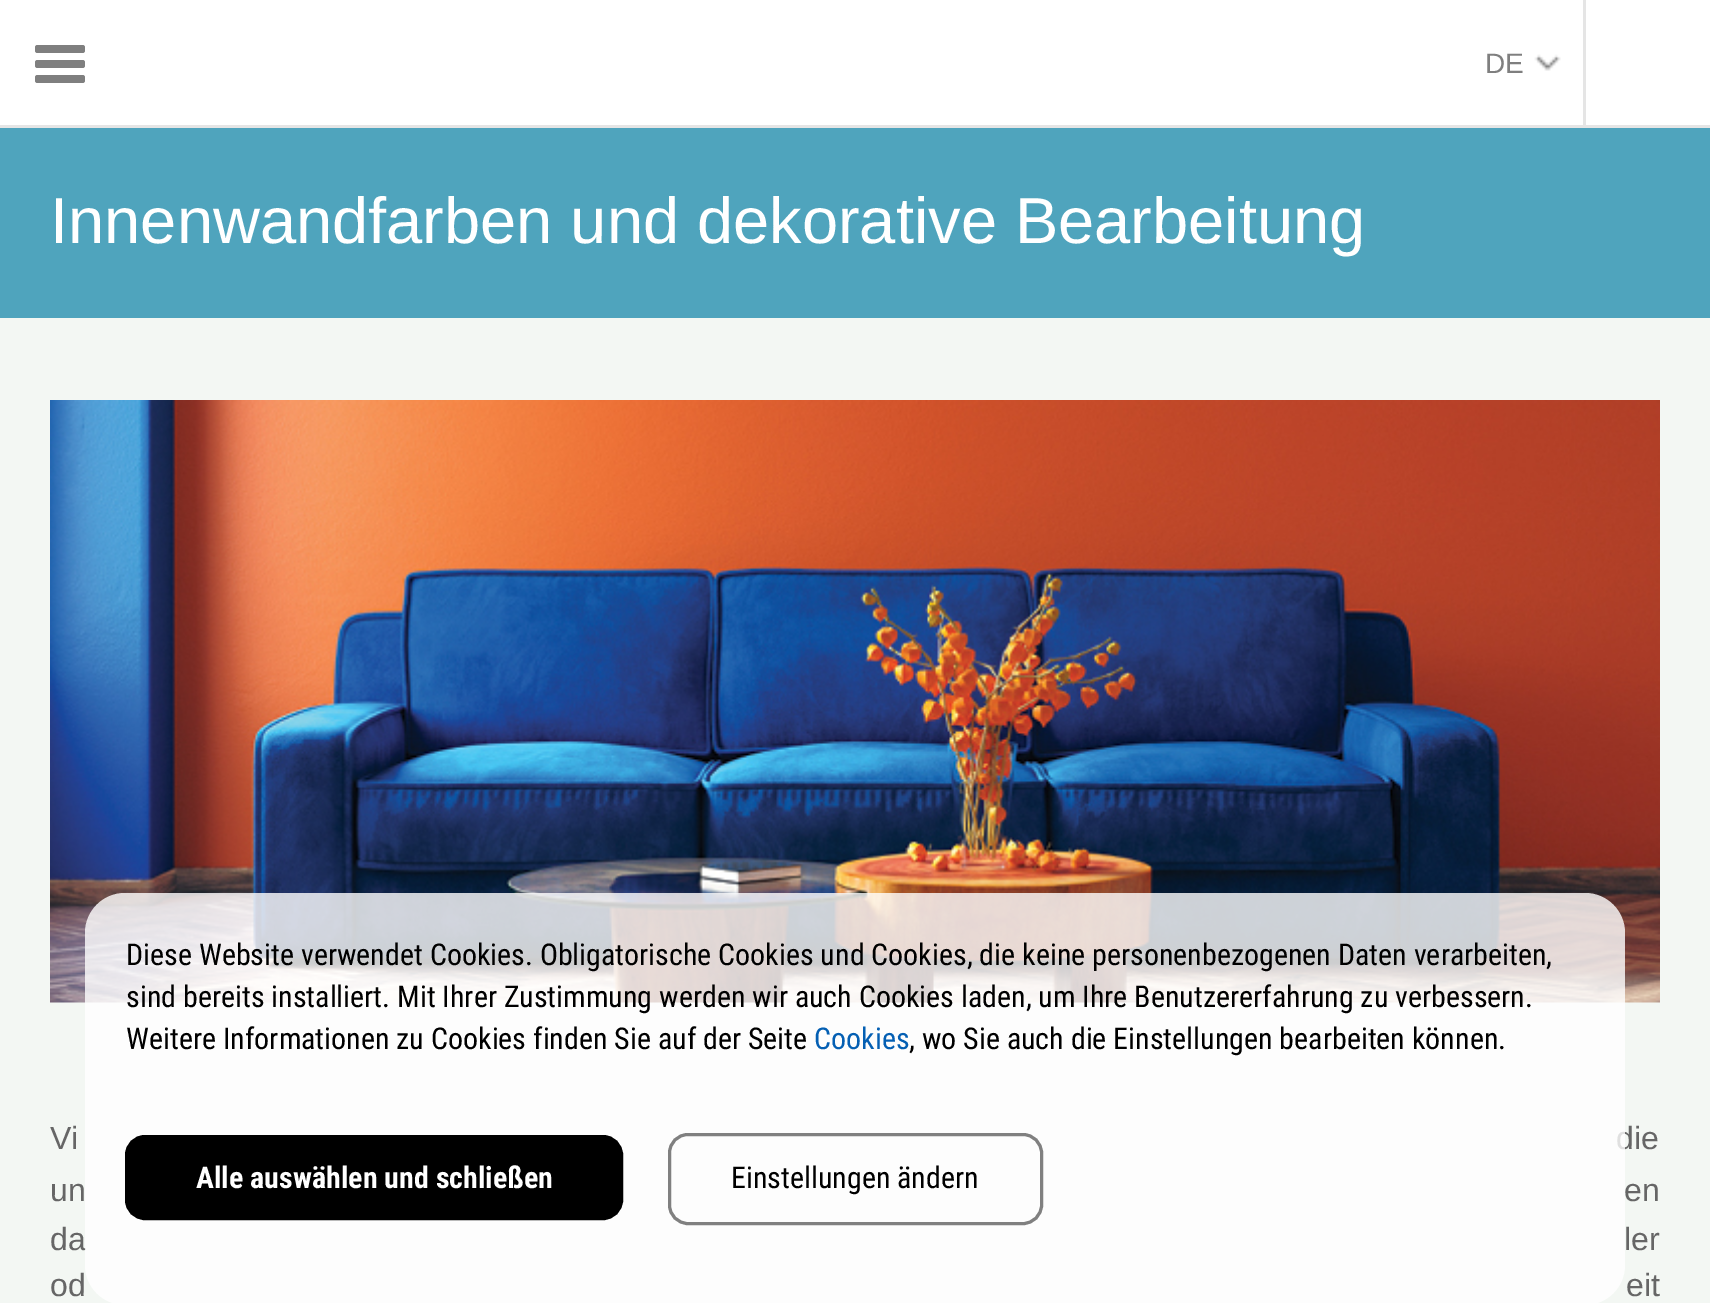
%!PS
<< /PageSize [1710 1303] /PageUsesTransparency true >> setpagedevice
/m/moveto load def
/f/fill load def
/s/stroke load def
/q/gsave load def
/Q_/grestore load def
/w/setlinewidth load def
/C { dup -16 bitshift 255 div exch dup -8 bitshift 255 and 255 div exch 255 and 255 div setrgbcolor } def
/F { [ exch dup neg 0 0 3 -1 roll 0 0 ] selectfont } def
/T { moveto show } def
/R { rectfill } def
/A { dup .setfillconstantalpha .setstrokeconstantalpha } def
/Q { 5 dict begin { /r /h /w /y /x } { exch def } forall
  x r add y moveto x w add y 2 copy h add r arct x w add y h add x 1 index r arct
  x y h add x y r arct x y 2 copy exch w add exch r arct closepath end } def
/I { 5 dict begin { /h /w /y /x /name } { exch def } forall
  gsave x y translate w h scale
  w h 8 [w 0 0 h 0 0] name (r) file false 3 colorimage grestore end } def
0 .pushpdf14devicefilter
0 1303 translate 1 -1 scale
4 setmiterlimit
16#F3F7F3 C
0 0 1710 1303 R
16#FFFFFF C
0 0 325 125 R
16#E5E5E5 C
0 125 325 3 R
16#7F7F7F C
35 45 50 8 2.5 Q f
35 60 50 8 2.5 Q f
35 75 50 8 2.5 Q f
16#FFFFFF C
325 0 1258 125 R
16#E5E5E5 C
325 125 1385 3 R
(1.rgb) 1534 54 27 17 I
/LiberationSans-Regular 28 F
16#7F7F7F C
(DE) 1485 73 T
16#FFFFFF C
1586 0 124 125 R
16#E5E5E5 C
1583 0 3 128 R
16#4FA4BD C
0 128 1710 190 R
/LiberationSans-Regular 65 F
16#FFFFFF C
(Innenwandfarben und dekorative Bearbeitung) 50 243 T
(2.rgb) 50 400 1610 603 I
/LiberationSans-Regular 32 F
16#666666 C
(Vi) 50 1149 T
(die) 1616 1149 T
50 1201 m 2 0 32 (un) widthshow
1624 1201 m 2 0 32 (en) widthshow
50 1250 m 1 0 32 (da) widthshow
1624 1250 m 1 0 32 (ler) widthshow
50 1296 m 1 0 32 (od) widthshow
1626 1296 m 1 0 32 (eit) widthshow
0.8 A
16#FFFFFF C
85 893 1540 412 40 Q f
/RobotoCondensed-Regular 30 F
1 A
16#000000 C
(Diese Website verwendet Cookies. Obligatorische Cookies und Cookies, die keine personenbezogenen Daten verarbeiten,) 126 965 T
(sind bereits installiert. Mit Ihrer Zustimmung werden wir auch Cookies laden, um Ihre Benutzererfahrung zu verbessern.) 126 1007 T
(Weitere Informationen zu Cookies finden Sie auf der Seite) 126 1049 T
16#045FB3 C
(Cookies) 814 1049 T
16#000000 C
(, wo Sie auch die Einstellungen bearbeiten können.) 909 1049 T
127.5 1137.5 493 80 17.5 Q q f Q_
5 w
s
/RobotoCondensed-Bold 30 F
16#FFFFFF C
(Alle auswählen und schließen) 196 1188 T
16#808080 C
3 w
669.5 1134.5 372 89 18.5 Q s
/RobotoCondensed-Regular 30 F
16#000000 C
(Einstellungen ändern) 731 1188 T
.poppdf14devicefilter showpage
